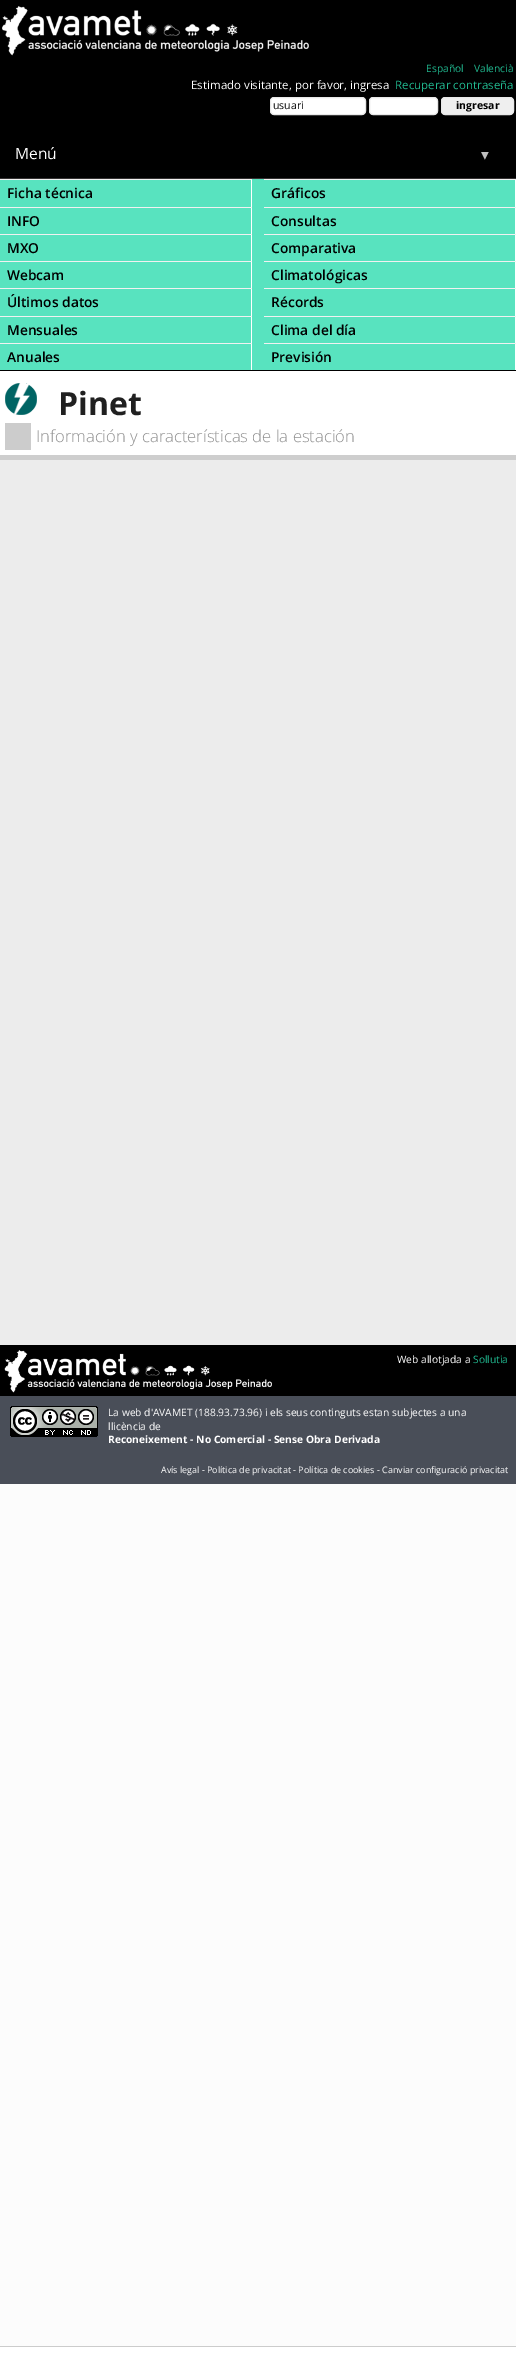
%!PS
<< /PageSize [516 2357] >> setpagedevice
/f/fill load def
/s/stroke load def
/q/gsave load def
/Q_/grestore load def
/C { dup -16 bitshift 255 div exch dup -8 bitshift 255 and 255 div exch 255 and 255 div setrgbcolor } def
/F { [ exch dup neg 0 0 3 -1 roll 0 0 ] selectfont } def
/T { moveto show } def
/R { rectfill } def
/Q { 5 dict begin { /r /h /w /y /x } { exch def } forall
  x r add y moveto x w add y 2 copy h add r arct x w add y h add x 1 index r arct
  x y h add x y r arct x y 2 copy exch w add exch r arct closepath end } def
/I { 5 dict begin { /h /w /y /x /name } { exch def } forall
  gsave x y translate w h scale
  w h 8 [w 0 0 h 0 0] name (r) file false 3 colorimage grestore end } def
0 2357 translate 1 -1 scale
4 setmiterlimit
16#FCFCFC C
0 0 516 2357 R
16#FFFFFF C
0 371 516 84 R
16#000000 C
0 0 516 178 R
(1.rgb) 2 6 307 50 I
/OpenSans-Regular 10.25 F
16#21B990 C
(Español) 426 72 T
(Valencià) 474 72 T
/OpenSans-Regular 11.5 F
16#FFFFFF C
(Estimado visitante, por favor, ingresa) 191 89 T
16#21B990 C
(Recuperar contraseña) 395 89 T
16#FFFFFF C
270.5 97.5 95 17 3.5 Q q f Q_
16#E8E8E8 C
s
/OpenSans-Regular 10.5 F
16#000000 C
(usuari) 273 109 T
16#FFFFFF C
369.5 97.5 68 17 3.5 Q q f Q_
16#E8E8E8 C
s
16#EFEFEF C
441.5 97.5 72 17 3.5 Q q f Q_
16#E8E8E8 C
s
/OpenSans-Bold 10.5 F
16#000000 C
(ingresar) 456 109 T
16#353333 C
0 178 516 1 R
/OpenSans-Regular 15.5 F
16#FFFFFF C
(Menú) 15 159 T
/DejaVuSans-Regular 15.5 F
16#BFBFBF C
(▾) 481 160 T
16#58E3BF C
0 179 515 191 R
16#000000 C
0 370 516 1 R
16#F1F1F1 C
0 179 252 1 R
16#FFFFFF C
251 180 1 27 R
/OpenSans-SemiBold 13.75 F
16#000000 C
(Ficha técnica) 7 198 T
16#F1F1F1 C
264 179 252 1 R
16#FFFFFF C
515 180 1 27 R
16#000000 C
(Gráficos) 271 198 T
16#F1F1F1 C
0 207 252 1 R
16#FFFFFF C
251 208 1 26 R
16#000000 C
(INFO) 7 226 T
16#F1F1F1 C
264 207 252 1 R
16#FFFFFF C
515 208 1 26 R
16#000000 C
(Consultas) 271 226 T
16#F1F1F1 C
0 234 252 1 R
16#FFFFFF C
251 235 1 26 R
16#000000 C
(MXO) 7 253 T
16#F1F1F1 C
264 234 252 1 R
16#FFFFFF C
515 235 1 26 R
16#000000 C
(Comparativa) 271 253 T
16#F1F1F1 C
0 261 252 1 R
16#FFFFFF C
251 262 1 26 R
16#000000 C
(Webcam) 7 280 T
16#F1F1F1 C
264 261 252 1 R
16#FFFFFF C
515 262 1 26 R
16#000000 C
(Climatológicas) 271 280 T
16#F1F1F1 C
0 288 252 1 R
16#FFFFFF C
251 289 1 27 R
16#000000 C
(Últimos datos) 7 307 T
16#F1F1F1 C
264 288 252 1 R
16#FFFFFF C
515 289 1 27 R
16#000000 C
(Récords) 271 307 T
16#F1F1F1 C
0 316 252 1 R
16#FFFFFF C
251 317 1 26 R
16#000000 C
(Mensuales) 7 335 T
16#F1F1F1 C
264 316 252 1 R
16#FFFFFF C
515 317 1 26 R
16#000000 C
(Clima del día) 271 335 T
16#F1F1F1 C
0 343 252 1 R
16#FFFFFF C
251 344 1 26 R
16#000000 C
(Anuales) 7 362 T
16#F1F1F1 C
264 343 252 1 R
16#FFFFFF C
515 344 1 26 R
16#000000 C
(Previsión) 271 362 T
(2.rgb) 5 383 32 32 I
/OpenSans-Bold 32 F
16#202020 C
(Pinet) 58 415 T
16#CCCCCC C
5 423 26 27 R
/OpenSans-Light 16.6 F
16#909090 C
(Información y características de la estación) 36 442 T
16#ECECEC C
0 460 516 885 R
16#CECECE C
0 455 516 5 R
16#000000 C
0 1345 516 51 R
(3.rgb) 4 1350 268 43 I
/OpenSans-Regular 10.25 F
16#FFFFFF C
(Web allotjada a) 397 1363 T
16#21B990 C
(Sollutia) 473 1363 T
16#494E58 C
0 1396 516 88 R
(4.rgb) 10 1406 88 31 I
16#FFFFFF C
(La web d'AVAMET \(188.93.73.96\) i els seus continguts estan subjectes a una) 108 1416 T
(llicència de) 108 1430 T
/OpenSans-Bold 10.25 F
(Reconeixement - No Comercial - Sense Obra Derivada) 108 1443 T
/OpenSans-Regular 8.95 F
(Avís legal - Política de privacitat - Política de cookies - Canviar configuració privacitat) 161 1473 T
0 2347 516 10 R
16#CCCCCC C
0 2346 516 1 R
showpage
